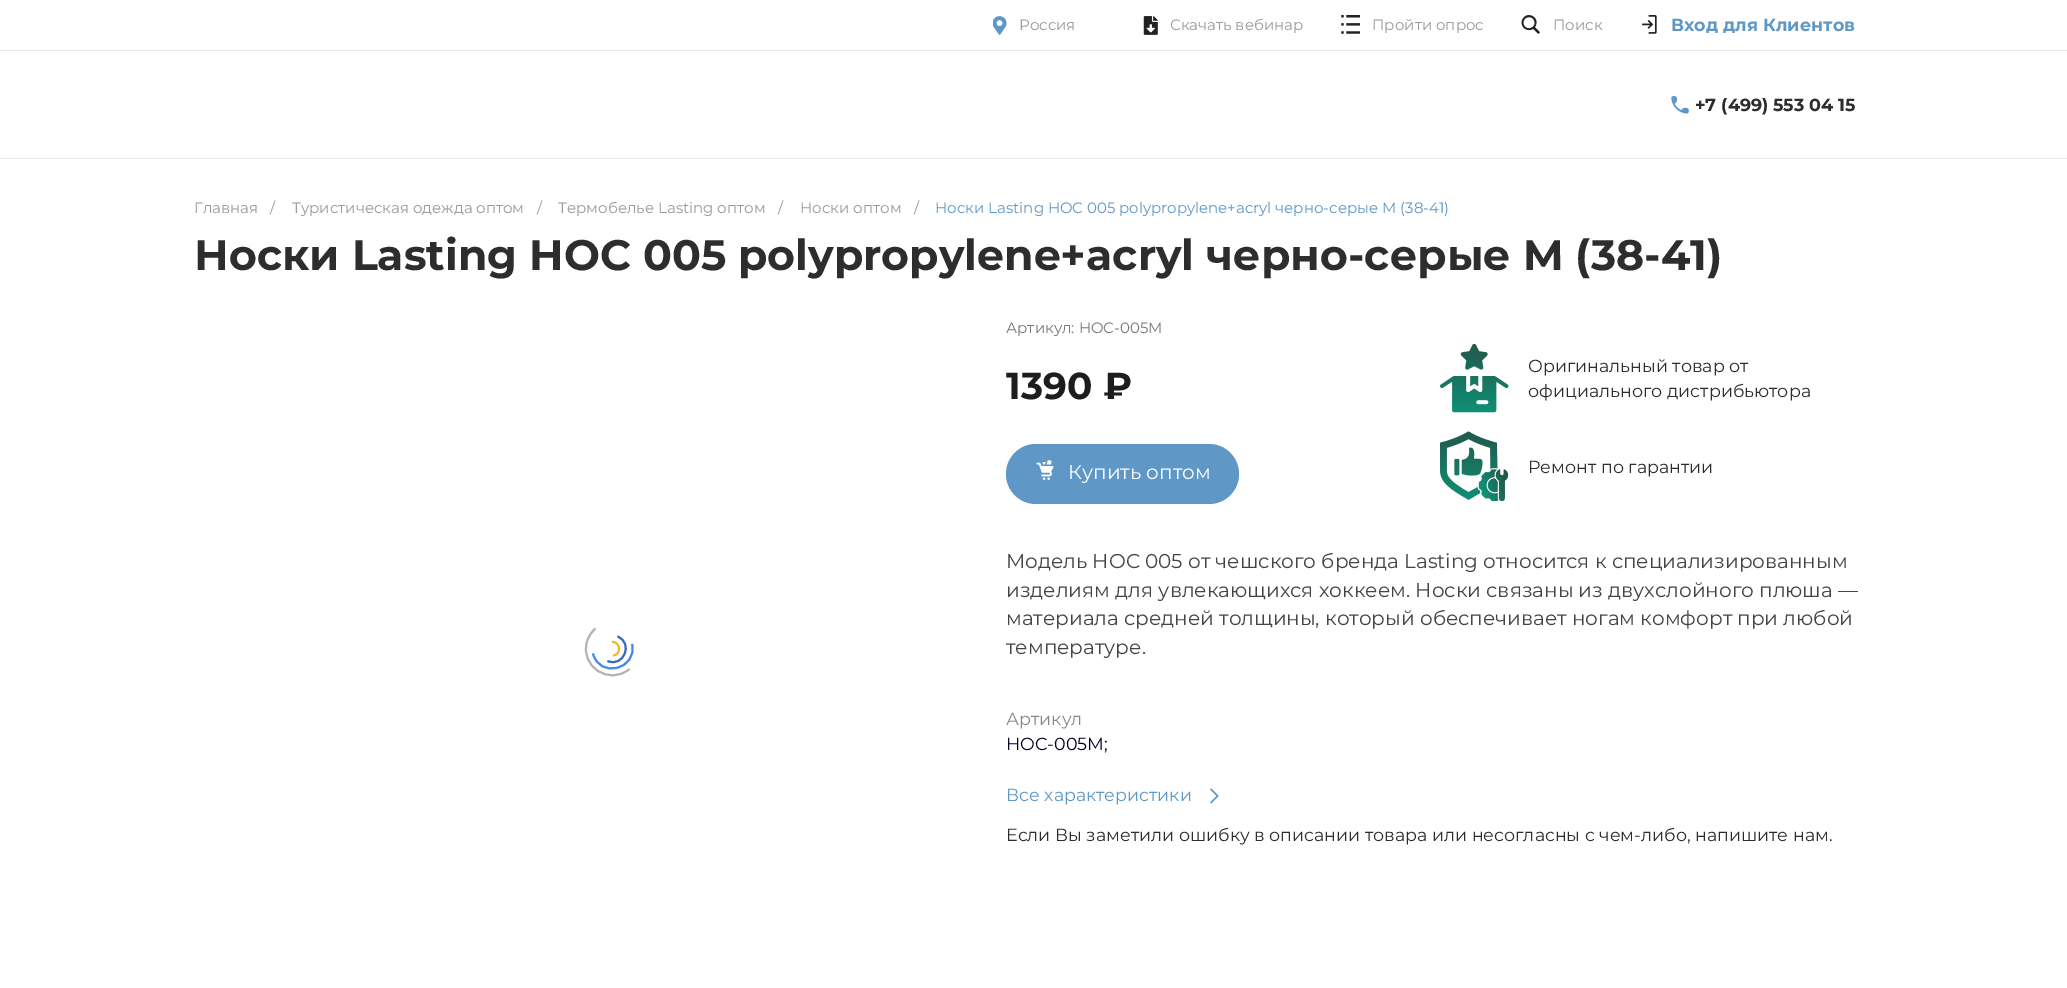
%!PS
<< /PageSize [2067 988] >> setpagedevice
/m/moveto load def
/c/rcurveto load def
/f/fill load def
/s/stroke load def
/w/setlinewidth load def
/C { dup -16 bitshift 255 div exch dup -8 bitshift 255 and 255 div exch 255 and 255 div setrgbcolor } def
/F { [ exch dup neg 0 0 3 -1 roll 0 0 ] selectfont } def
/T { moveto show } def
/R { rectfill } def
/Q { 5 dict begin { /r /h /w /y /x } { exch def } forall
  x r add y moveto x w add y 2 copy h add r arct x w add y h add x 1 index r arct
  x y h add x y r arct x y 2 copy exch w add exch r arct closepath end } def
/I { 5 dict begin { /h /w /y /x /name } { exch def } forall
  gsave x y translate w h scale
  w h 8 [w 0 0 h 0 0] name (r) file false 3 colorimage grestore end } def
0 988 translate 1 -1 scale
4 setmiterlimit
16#FFFFFF C
0 0 2067 988 R
16#E8E8E8 C
0 50 2067 1 R
(1.rgb) 993 16 14 19 I
/Montserrat-Regular 15 F
16#9A9A9A C
(Россия) 1019 30 T
(2.rgb) 1143 16 15 19 I
(Скачать вебинар) 1170 30 T
(3.rgb) 1341 15 19 19 I
(Пройти опрос) 1372 30 T
(4.rgb) 1521 15 19 19 I
(Поиск) 1553 30 T
(5.rgb) 1642 15 15 19 I
/Montserrat-Bold 17.5 F
16#5F98C7 C
(Вход для Клиентов) 1671 31 T
16#E8E8E8 C
0 158 2067 1 R
(6.rgb) 1671 96 18 18 I
16#2D2D2D C
(+7 \(499\) 553 04 15) 1695 111 T
/Montserrat-Regular 15 F
16#9A9A9A C
(Главная) 194 213 T
(/) 270 213 T
(Туристическая одежда оптом) 292 213 T
(/) 537 213 T
(Термобелье Lasting оптом) 558 213 T
(/) 778 213 T
(Носки оптом) 800 213 T
(/) 914 213 T
16#5F98C7 C
(Носки Lasting HOC 005 polypropylene+acryl черно-серые M \(38-41\)) 935 213 T
/Montserrat-Bold 42.65 F
16#2D2D2D C
(Носки Lasting HOC 005 polypropylene+acryl черно-серые M \(38-41\)) 194 270 T
16#F3B72E C
2 w
612 642 m 9 -.5 9.5 13 1 13.5 c s
16#3869C5 C
617.5 636.5 m 16.5 6.5 6 31.5 -10 24.5 c s
16#4686F4 C
632 644 m 6 25.5 -33 35 -39 9.5 c s
16#B4B4B4 C
629.5 669 m -20 17 -50 -2.5 -42.5 -27.5 c 1.5 -5 4.5 -10 8.5 -13 c s
/Montserrat-Regular 15 F
16#777777 C
(Артикул: HOC-005M) 1006 333 T
/Montserrat-Bold 37.5 F
16#1D1D1D C
(1390 ₽) 1006 399 T
16#5F98C7 C
1006 444 233 60 30 Q f
(7.rgb) 1036 460 18 20 I
/Montserrat-Regular 20 F
16#FFFFFF C
(Купить оптом) 1068 479 T
(8.rgb) 1440 344 69 69 I
/Montserrat-Regular 17.5 F
16#2D2D2D C
(Оригинальный товар от) 1528 372 T
(официального дистрибьютора) 1528 397 T
(9.rgb) 1440 431 69 70 I
(Ремонт по гарантии) 1528 473 T
/Montserrat-Regular 20 F
16#444444 C
(Модель HOC 005 от чешского бренда Lasting относится к специализированным) 1006 568 T
(изделиям для увлекающихся хоккеем. Носки связаны из двухслойного плюша —) 1006 597 T
(материала средней толщины, который обеспечивает ногам комфорт при любой) 1006 625 T
(температуре.) 1006 654 T
/Montserrat-Regular 17.5 F
16#888888 C
(Артикул) 1006 725 T
16#000022 C
(HOC-005M;) 1006 750 T
16#5F98C7 C
(Все характеристики) 1006 801 T
(10.rgb) 1210 788 9 16 I
16#2D2D2D C
(Если Вы заметили ошибку в описании товара или несогласны с чем-либо, напишите нам.) 1006 841 T
showpage
